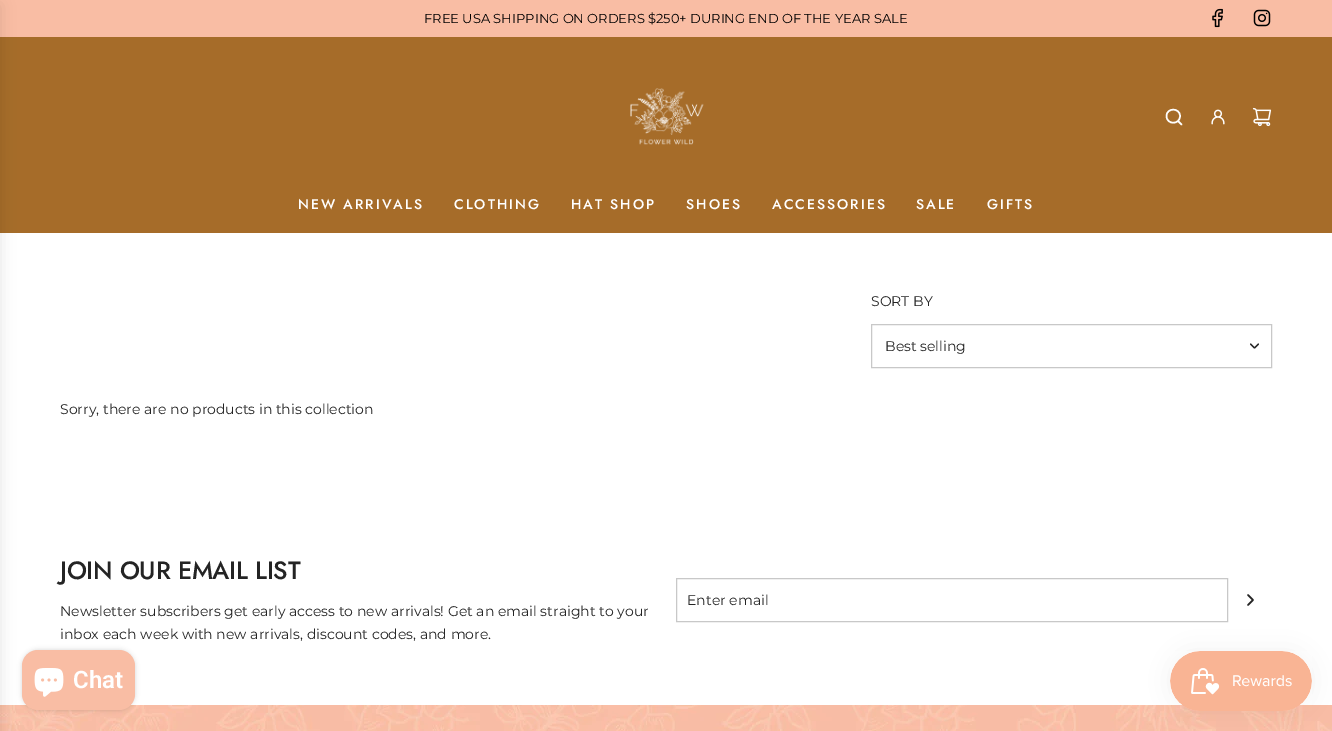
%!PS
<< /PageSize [1332 731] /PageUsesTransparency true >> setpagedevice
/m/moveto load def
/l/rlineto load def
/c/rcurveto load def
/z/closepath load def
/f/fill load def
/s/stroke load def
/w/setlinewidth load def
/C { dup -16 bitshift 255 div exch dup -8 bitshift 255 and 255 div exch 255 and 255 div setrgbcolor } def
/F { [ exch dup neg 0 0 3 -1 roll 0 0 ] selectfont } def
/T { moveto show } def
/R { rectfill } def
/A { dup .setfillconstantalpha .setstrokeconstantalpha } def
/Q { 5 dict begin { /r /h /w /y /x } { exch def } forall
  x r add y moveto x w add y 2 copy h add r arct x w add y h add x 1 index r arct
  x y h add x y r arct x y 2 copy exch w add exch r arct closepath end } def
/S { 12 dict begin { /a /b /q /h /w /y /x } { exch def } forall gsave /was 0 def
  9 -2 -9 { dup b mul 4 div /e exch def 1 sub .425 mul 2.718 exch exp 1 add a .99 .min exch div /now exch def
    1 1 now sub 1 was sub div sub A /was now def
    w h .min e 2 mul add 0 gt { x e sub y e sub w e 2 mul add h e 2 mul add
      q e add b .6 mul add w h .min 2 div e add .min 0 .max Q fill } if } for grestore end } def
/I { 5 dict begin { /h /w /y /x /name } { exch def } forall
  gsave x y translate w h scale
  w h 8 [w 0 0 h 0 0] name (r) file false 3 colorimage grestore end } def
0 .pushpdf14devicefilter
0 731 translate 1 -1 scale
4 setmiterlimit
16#FFFFFF C
0 0 1332 731 R
16#F9BDA4 C
0 0 1332 37 R
/Montserrat-Regular 13 F
16#000000 C
(FREE USA SHIPPING ON ORDERS $250+ DURING END OF THE YEAR SALE) 424 23 T
(1.rgb) 1212 8 11 20 I
(2.rgb) 1253 9 18 18 I
16#A66C29 C
0 37 1332 196 R
(6.rgb) 0 705 1332 26 I
16#000000 C
-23 5 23 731 0 7.5 .1 S
(3.rgb) 630 88 74 57 I
16#FFFFFF C
1.5 w
1 setlinecap
1 setlinejoin
1178 121 m 3.5 3.5 l 1166.5 116 m 0 9 13.5 9 13.5 0 c 0 -8.5 -13.5 -8.5 -13.5 0 c z s
(4.rgb) 1211 109 14 16 I
(5.rgb) 1252 107 20 20 I
/Jost-Medium 14 F
298 209 m 2 0 (NEW ARRIVALS) ashow
454 209 m 2 0 (CLOTHING) ashow
571 209 m 2 0 (HAT SHOP) ashow
686 209 m 2 0 (SHOES) ashow
772 209 m 2 0 (ACCESSORIES) ashow
916 209 m 2 0 (SALE) ashow
987 209 m 2 0 (GIFTS) ashow
/Montserrat-Regular 14 F
16#242424 C
(SORT BY) 871 306 T
16#C8C8C8 C
1 w
0 setlinecap
0 setlinejoin
871.5 324.5 400 43 rectstroke
16#242424 C
(Best selling) 885 351 T
1.2 w
1 setlinecap
1 setlinejoin
1250.5 344 m 4 4 l 4 -4 l s
(Sorry, there are no products in this collection) 60 414 T
/Jost-Medium 25 F
60 579 m -.25 0 (JOIN OUR EMAIL LIST) ashow
/Montserrat-Regular 14 F
(Newsletter subscribers get early access to new arrivals! Get an email straight to your) 60 616 T
(inbox each week with new arrivals, discount codes, and more.) 60 639 T
16#C8C8C8 C
1 w
0 setlinecap
0 setlinejoin
676.5 578.5 551 43 rectstroke
16#242424 C
(Enter email) 687 605 T
1.5 w
1 setlinecap
1 setlinejoin
1248 595 m 5 5 l -5 5 l s
16#000000 C
22 650 113 60 16 2.5 .15 S
16#F9BDA4 C
22 650 113 60 16 Q f
(7.rgb) 34 668 30 29 I
/Roboto-SemiBold 24 F
16#FFFFFF C
(Chat) 73 688 T
16#000000 C
1170 651 142 60 30 12.5 .05 S
(8.rgb) 1170 651 142 60 I
.poppdf14devicefilter showpage
